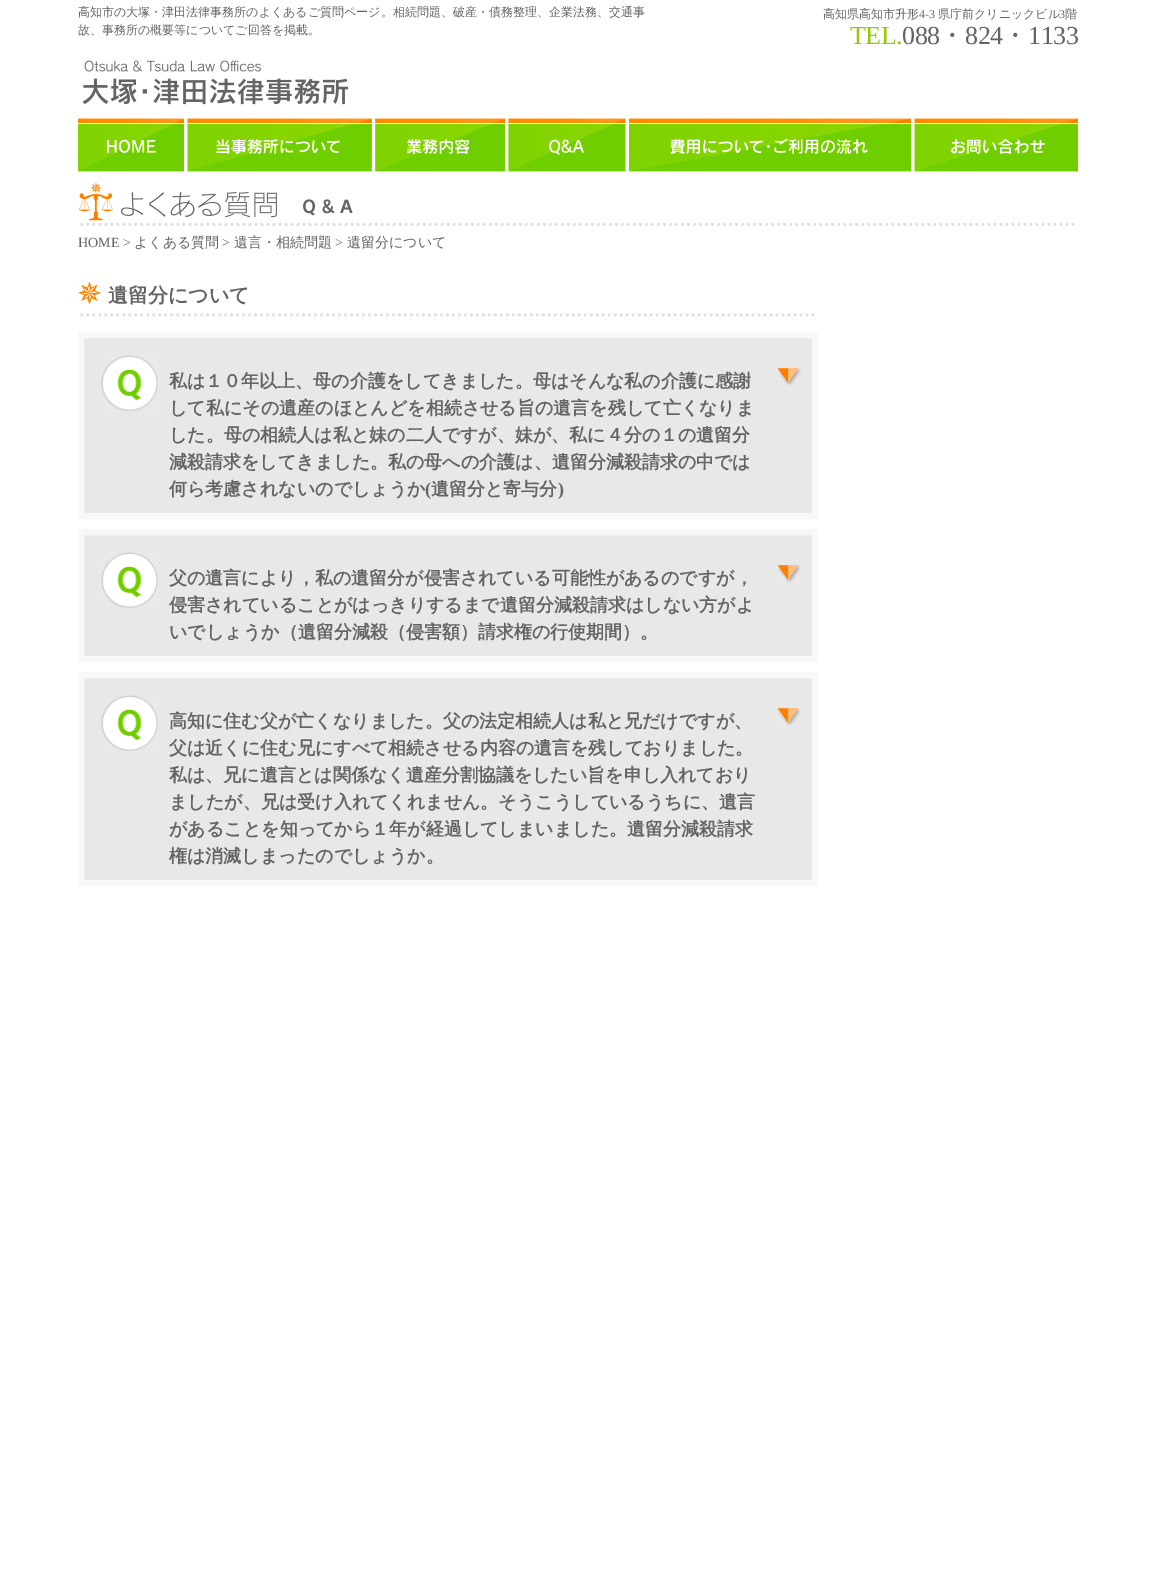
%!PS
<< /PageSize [1155 1583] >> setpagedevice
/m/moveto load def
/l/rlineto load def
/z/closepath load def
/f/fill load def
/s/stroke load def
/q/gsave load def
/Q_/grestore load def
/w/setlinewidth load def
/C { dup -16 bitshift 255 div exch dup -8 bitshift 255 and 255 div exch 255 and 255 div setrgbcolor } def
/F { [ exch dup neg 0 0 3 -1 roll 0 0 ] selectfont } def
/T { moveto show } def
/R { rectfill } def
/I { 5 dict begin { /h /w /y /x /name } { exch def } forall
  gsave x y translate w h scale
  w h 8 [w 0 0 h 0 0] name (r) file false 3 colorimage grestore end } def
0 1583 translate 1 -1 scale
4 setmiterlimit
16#FFFFFF C
0 0 1155 1583 R
/WenQuanYiZenHei-Medium 12 F
16#646464 C
(高知市の大塚・津田法律事務所のよくあるご質問ページ。相続問題、破産・債務整理、企業法務、交通事) 78 16 T
(故、事務所の概要等についてご回答を掲載。) 78 34 T
(1.rgb) 82 60 267 45 I
(高知県高知市升形) 823 18 T
/LiberationSerif-Regular 12 F
(4-3) 919 18 T
/WenQuanYiZenHei-Medium 12 F
(県庁前クリニックビル) 938 18 T
/LiberationSerif-Regular 12 F
(3) 1059 18 T
/WenQuanYiZenHei-Medium 12 F
(階) 1065 18 T
/LiberationSerif-Regular 26 F
16#90CC00 C
850 44 m -.5 0 (TEL.) ashow
16#646464 C
902 44 m -.5 0 (088) ashow
/WenQuanYiZenHei-Medium 26 F
939 44 m -.5 0 (・) ashow
/LiberationSerif-Regular 26 F
965 44 m -.5 0 (824) ashow
/WenQuanYiZenHei-Medium 26 F
1002 44 m -.5 0 (・) ashow
/LiberationSerif-Regular 26 F
1028 44 m -.5 0 (1133) ashow
(2.rgb) 78 118 106 54 I
(3.rgb) 187 118 185 54 I
(4.rgb) 375 118 130 54 I
(5.rgb) 508 118 118 54 I
(6.rgb) 629 118 282 54 I
(7.rgb) 914 118 164 54 I
(8.rgb) 78 182 1000 44 I
/LiberationSerif-Regular 14 F
(HOME >) 78 247 T
/WenQuanYiZenHei-Medium 14 F
(よくある質問) 134 247 T
/LiberationSerif-Regular 14 F
(>) 222 247 T
/WenQuanYiZenHei-Medium 14 F
(遺言・相続問題) 234 247 T
/LiberationSerif-Regular 14 F
(>) 335 247 T
/WenQuanYiZenHei-Medium 14 F
(遺留分について) 347 247 T
(9.rgb) 78 281 737 36 I
/WenQuanYiZenHei-Bold 20 F
(遺留分について) 108 302 T
16#E8E8E8 C
81 335 m 734 0 l 0 181 l -734 0 l z q f Q_
16#F8F8F8 C
6 w
s
(10.rgb) 777 368 24 18 I
(11.rgb) 101 355 57 56 I
/WenQuanYiZenHei-Bold 18 F
16#646464 C
(私は１０年以上、母の介護をしてきました。母はそんな私の介護に感謝) 169 387 T
(して私にその遺産のほとんどを相続させる旨の遺言を残して亡くなりま) 169 414 T
(した。母の相続人は私と妹の二人ですが、妹が、私に４分の１の遺留分) 169 441 T
(減殺請求をしてきました。私の母への介護は、遺留分減殺請求の中では) 169 468 T
(何ら考慮されないのでしょうか) 169 495 T
/LiberationSerif-Bold 18 F
(\() 425 495 T
/WenQuanYiZenHei-Bold 18 F
(遺留分と寄与分) 431 495 T
/LiberationSerif-Bold 18 F
(\)) 558 495 T
16#E8E8E8 C
81 532 m 734 0 l 0 127 l -734 0 l z q f Q_
16#F8F8F8 C
s
(10.rgb) 777 565 24 18 I
(11.rgb) 101 552 57 56 I
/WenQuanYiZenHei-Bold 18 F
16#646464 C
(父の遺言により，私の遺留分が侵害されている可能性があるのですが，) 169 584 T
(侵害されていることがはっきりするまで遺留分減殺請求はしない方がよ) 169 611 T
(いでしょうか（遺留分減殺（侵害額）請求権の行使期間）。) 169 638 T
16#E8E8E8 C
81 675 m 734 0 l 0 208 l -734 0 l z q f Q_
16#F8F8F8 C
s
(10.rgb) 777 708 24 18 I
(11.rgb) 101 695 57 56 I
16#646464 C
(高知に住む父が亡くなりました。父の法定相続人は私と兄だけですが、) 169 727 T
(父は近くに住む兄にすべて相続させる内容の遺言を残しておりました。) 169 754 T
(私は、兄に遺言とは関係なく遺産分割協議をしたい旨を申し入れており) 169 781 T
(ましたが、兄は受け入れてくれません。そうこうしているうちに、遺言) 169 808 T
(があることを知ってから１年が経過してしまいました。遺留分減殺請求) 169 835 T
(権は消滅しまったのでしょうか。) 169 862 T
showpage
